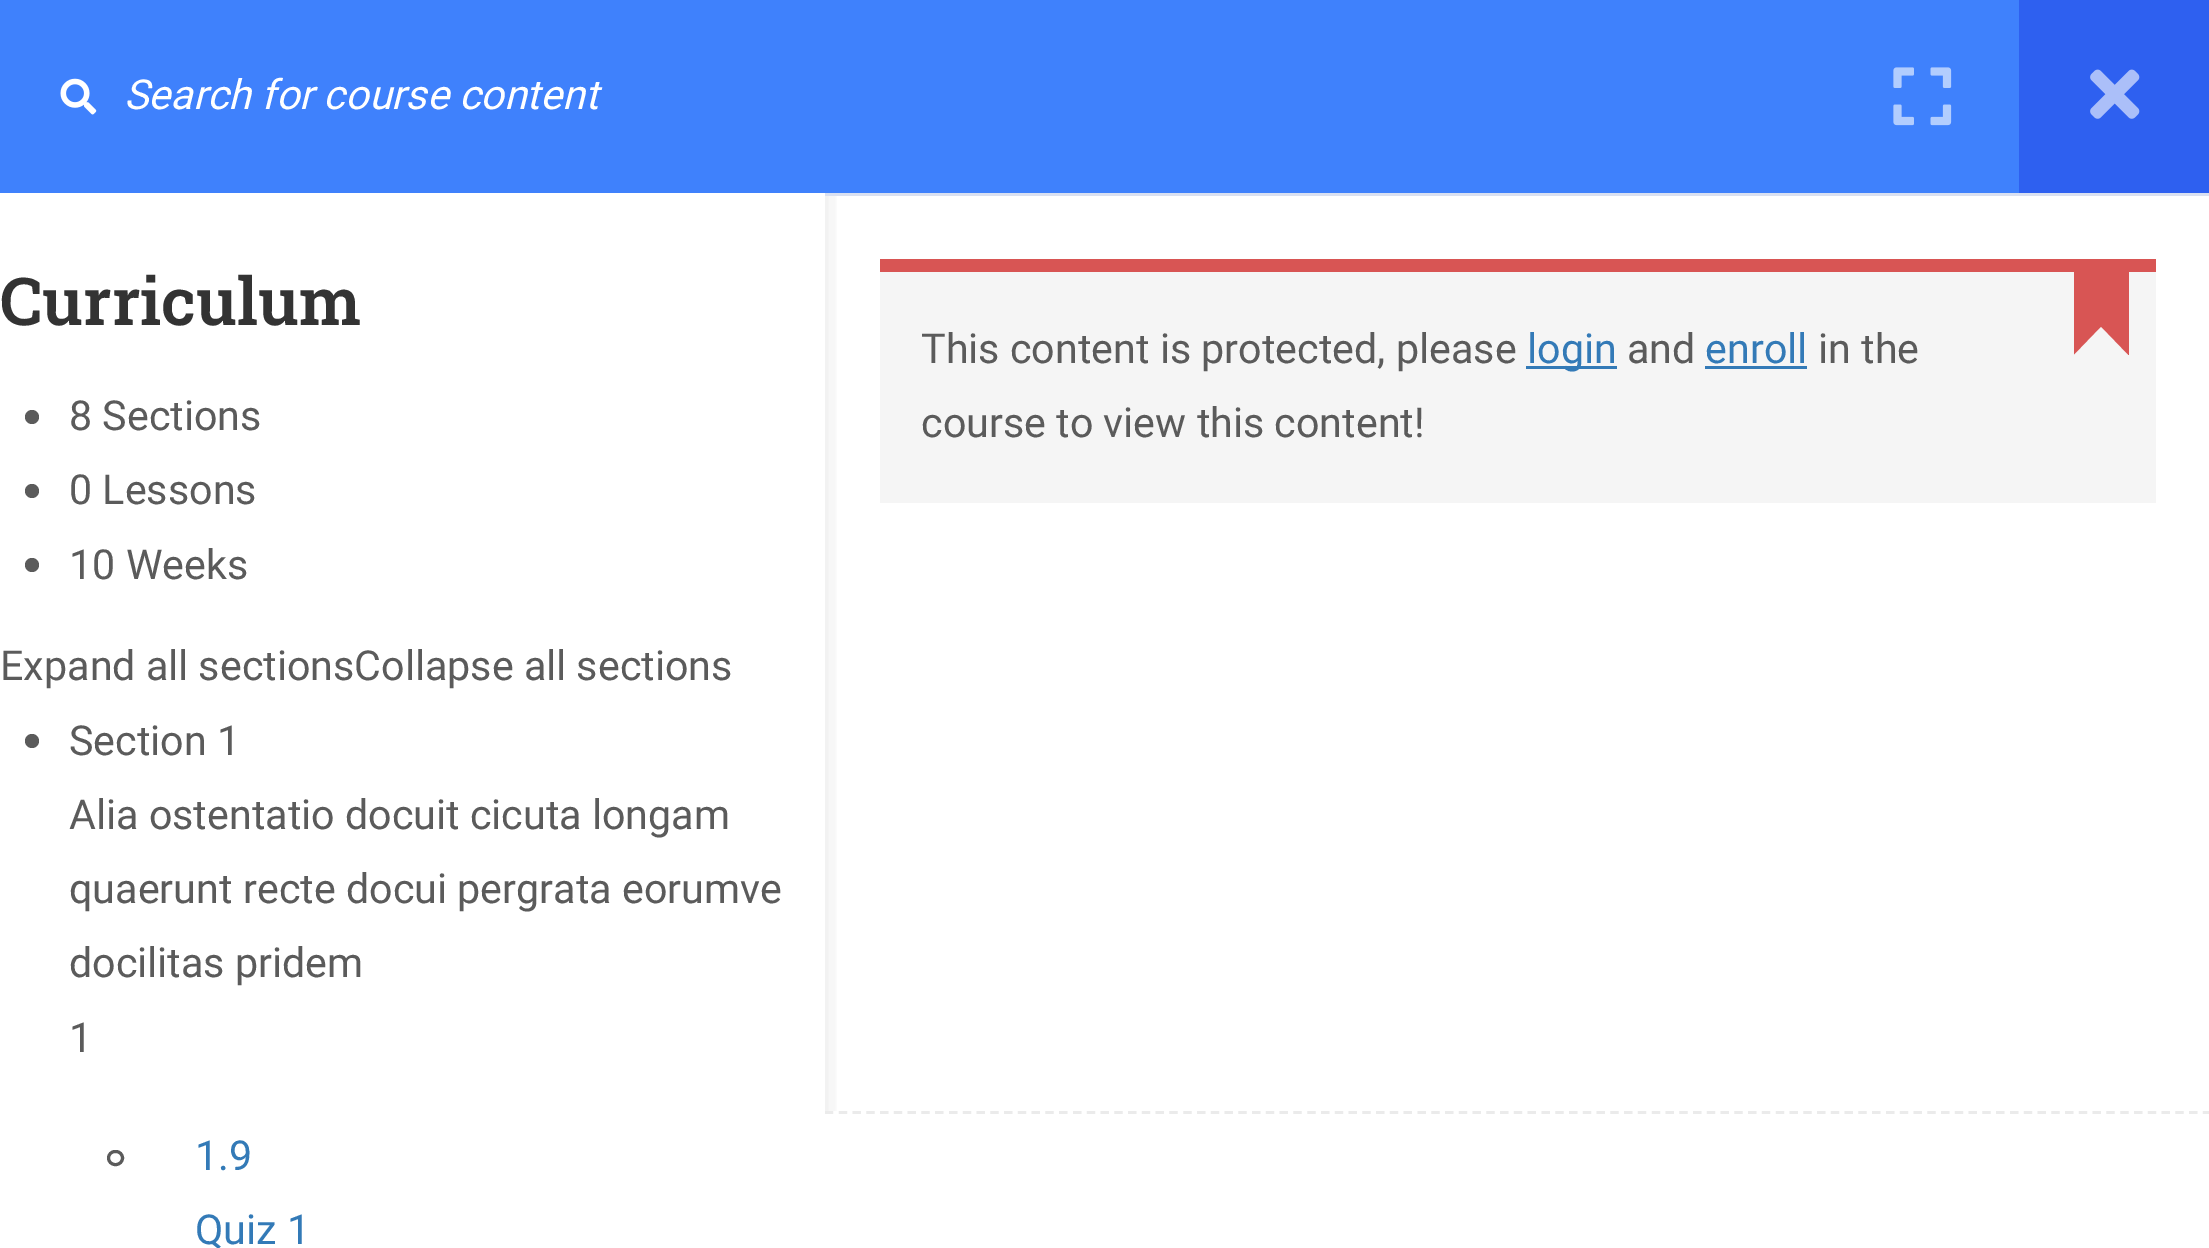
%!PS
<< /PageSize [2209 1248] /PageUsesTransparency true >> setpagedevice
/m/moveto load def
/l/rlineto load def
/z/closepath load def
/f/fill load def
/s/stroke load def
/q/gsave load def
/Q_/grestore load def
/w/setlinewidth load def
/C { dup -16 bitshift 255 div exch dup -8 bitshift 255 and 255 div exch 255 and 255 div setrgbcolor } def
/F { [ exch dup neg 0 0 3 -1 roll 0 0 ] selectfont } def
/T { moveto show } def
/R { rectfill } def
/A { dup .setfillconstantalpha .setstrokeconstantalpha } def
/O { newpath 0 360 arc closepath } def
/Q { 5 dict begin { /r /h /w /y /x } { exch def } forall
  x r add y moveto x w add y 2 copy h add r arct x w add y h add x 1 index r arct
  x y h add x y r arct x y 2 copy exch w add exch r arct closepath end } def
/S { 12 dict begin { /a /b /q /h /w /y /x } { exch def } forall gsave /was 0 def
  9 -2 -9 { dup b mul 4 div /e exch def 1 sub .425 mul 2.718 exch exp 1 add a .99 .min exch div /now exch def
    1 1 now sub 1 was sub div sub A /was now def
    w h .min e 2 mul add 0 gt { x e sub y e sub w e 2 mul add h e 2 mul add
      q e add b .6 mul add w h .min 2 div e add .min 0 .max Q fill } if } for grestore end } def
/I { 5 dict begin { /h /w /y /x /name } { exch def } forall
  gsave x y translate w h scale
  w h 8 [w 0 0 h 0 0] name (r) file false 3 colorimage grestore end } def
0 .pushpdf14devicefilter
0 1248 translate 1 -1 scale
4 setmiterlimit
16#FFFFFF C
0 0 2209 1248 R
q
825 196 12 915 rectclip
16#000000 C
0 6 825 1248 0 14 .1 S
Q_
16#3F81FC C
0 0 2019 193 R
(1.rgb) 60 78 37 37 I
/Roboto-Italic 41.25 F
16#FFFFFF C
(Search for course content) 124 109 T
/RobotoSlab-SemiBold 66 F
16#333333 C
(Curriculum) 0 325 T
16#5B5B5B C
32 417 7 O f
/Roboto-Regular 41.25 F
(8 Sections) 69 430 T
32 491 7 O f
(0 Lessons) 69 504 T
32 565 7 O f
(10 Weeks) 69 579 T
(Expand all sectionsCollapse all sections) 0 680 T
32 741 7 O f
(Section 1) 69 755 T
(Alia ostentatio docuit cicuta longam) 69 829 T
(quaerunt recte docui pergrata eorumve) 69 903 T
(docilitas pridem) 69 977 T
(1) 69 1052 T
3 w
108.5 1151.5 14 13 6.5 Q s
16#337AB7 C
(1.9) 195 1170 T
(Quiz 1) 195 1244 T
16#D9E0F1 C
825 193 1384 3 R
(2.rgb) 1893 67 59 59 I
16#2E60F0 C
2019 0 190 193 R
(3.rgb) 2090 69 50 50 I
16#F5F5F5 C
880 272 1276 231 R
16#D85554 C
880 259 1276 13 R
2074 272 55 83 R
16#5B5B5B C
(This content is protected, please) 921 363 T
16#337AB7 C
1526 366 91 3 R
(login) 1527 363 T
16#5B5B5B C
(and) 1627 363 T
16#337AB7 C
(enroll) 1705 363 T
1705 366 102 3 R
16#5B5B5B C
(in the) 1818 363 T
16#F5F5F5 C
2128 355 m -54 0 l 27 -28 l z f
16#5B5B5B C
(course to view this content!) 921 437 T
16#FFFFFF C
825 1111 18 137 R
16#EBEBEB C
2.8 w
[8.25 5.53] 0 setdash
825 1112.5 m 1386 0 l s
.poppdf14devicefilter showpage
